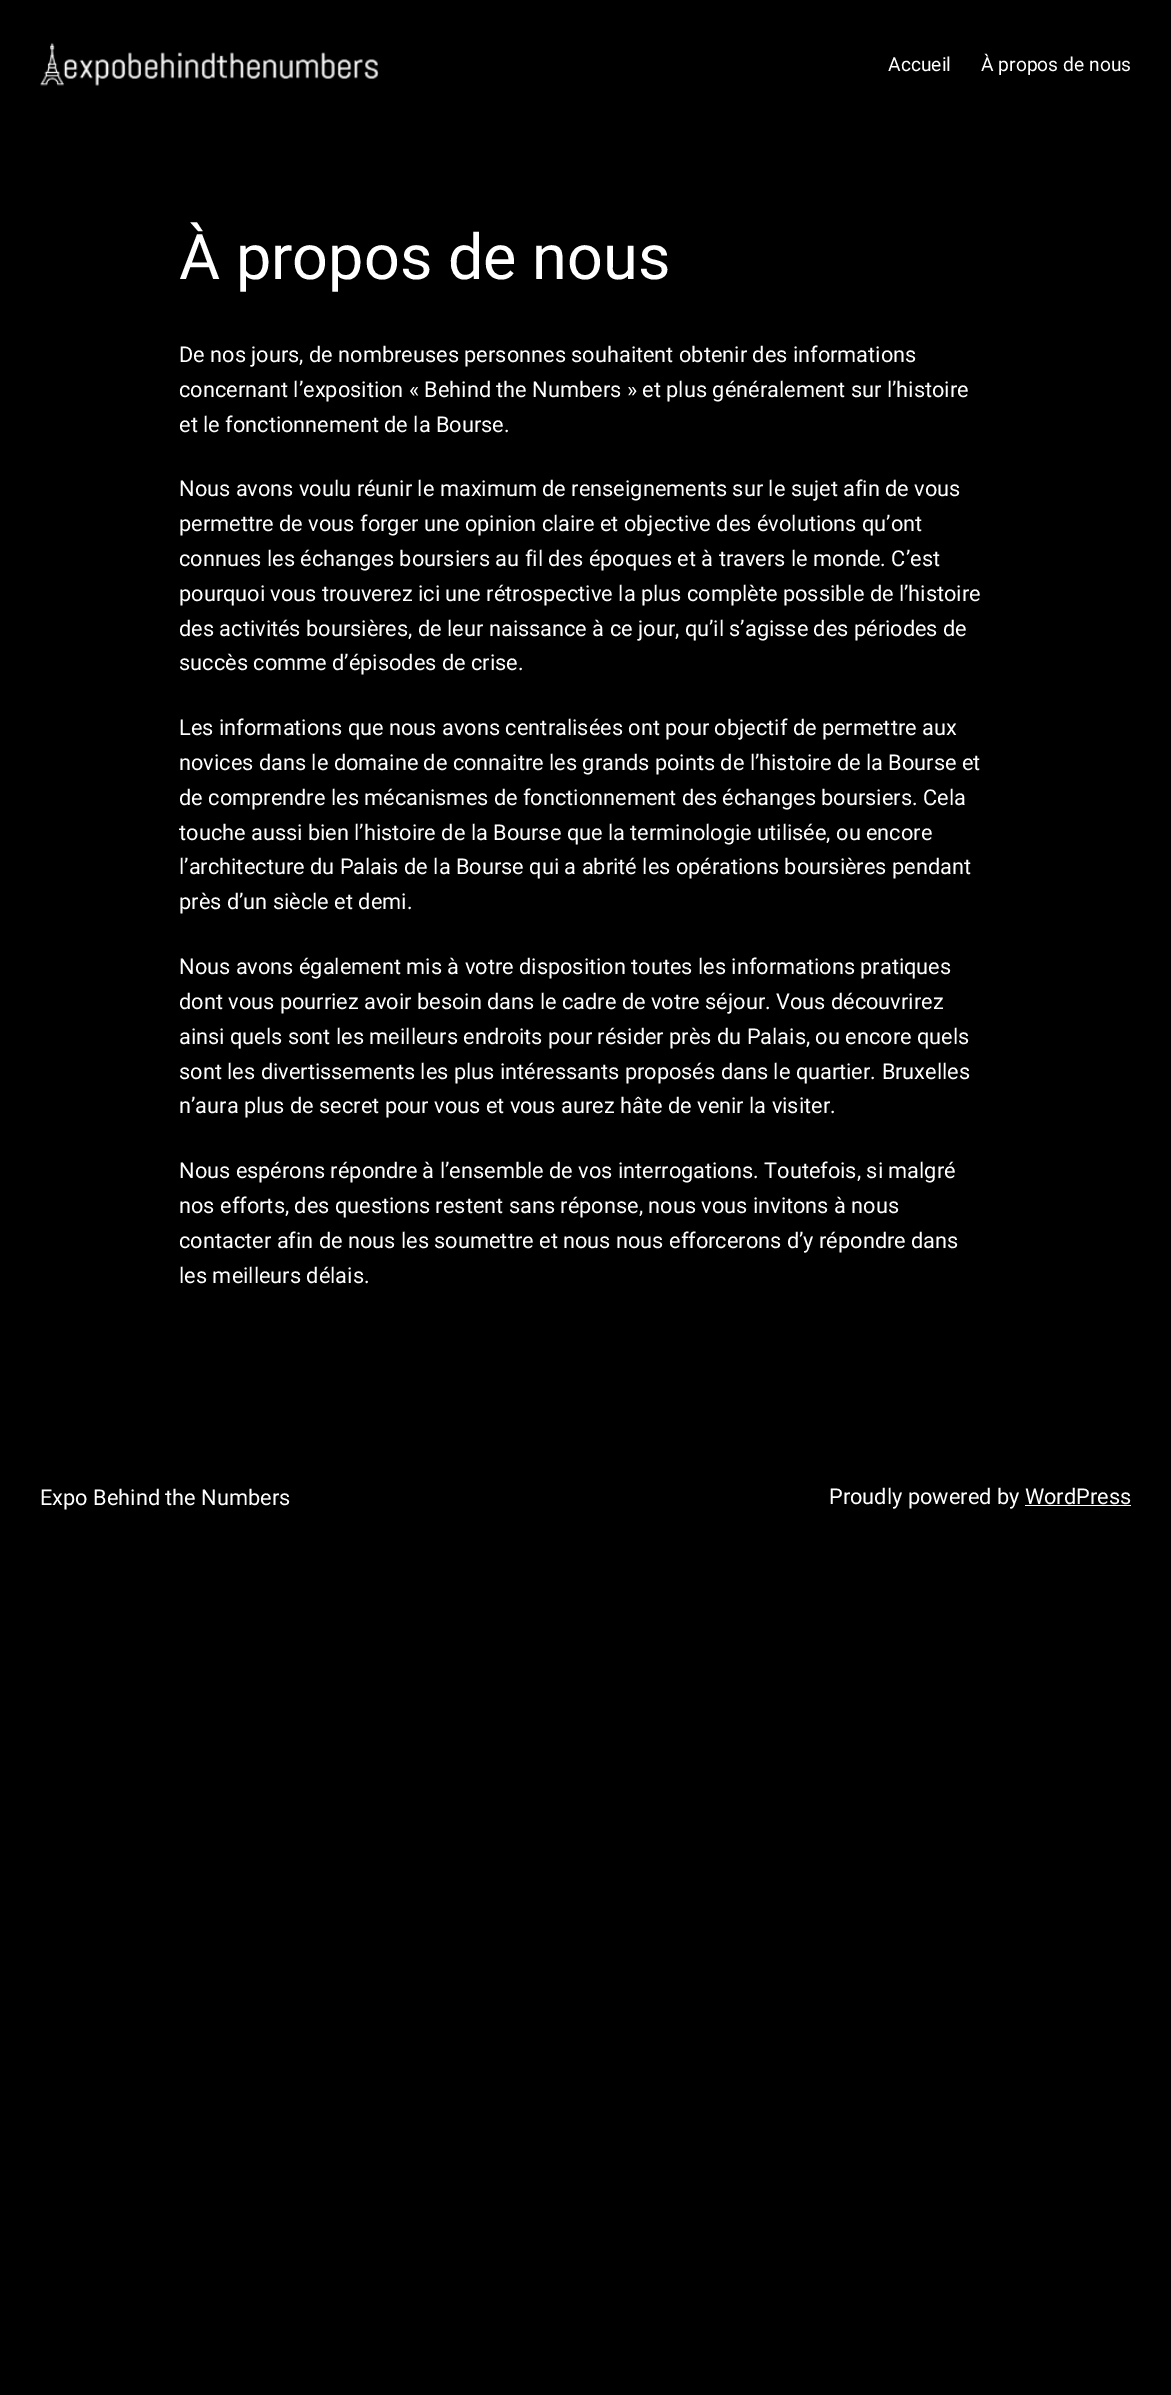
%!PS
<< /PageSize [1171 2395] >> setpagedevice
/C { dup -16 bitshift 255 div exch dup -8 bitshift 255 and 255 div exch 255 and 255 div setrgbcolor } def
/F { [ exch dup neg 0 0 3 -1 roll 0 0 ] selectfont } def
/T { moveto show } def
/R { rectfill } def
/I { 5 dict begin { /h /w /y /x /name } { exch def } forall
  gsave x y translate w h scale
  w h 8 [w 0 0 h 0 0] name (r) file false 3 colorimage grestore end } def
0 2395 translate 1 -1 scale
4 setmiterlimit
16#000000 C
0 0 1171 2395 R
(1.rgb) 40 42 339 44 I
/Roboto-Regular 19.25 F
16#FFFFFF C
(Accueil) 888 71 T
(À propos de nous) 981 71 T
/Roboto-Regular 63 F
(À propos de nous) 179 279 T
/Roboto-Regular 21.75 F
(De nos jours, de nombreuses personnes souhaitent obtenir des informations) 179 362 T
(concernant l’exposition « Behind the Numbers » et plus généralement sur l’histoire) 179 397 T
(et le fonctionnement de la Bourse.) 179 432 T
(Nous avons voulu réunir le maximum de renseignements sur le sujet afin de vous) 179 496 T
(permettre de vous forger une opinion claire et objective des évolutions qu’ont) 179 531 T
(connues les échanges boursiers au fil des époques et à travers le monde. C’est) 179 566 T
(pourquoi vous trouverez ici une rétrospective la plus complète possible de l’histoire) 179 601 T
(des activités boursières, de leur naissance à ce jour, qu’il s’agisse des périodes de) 179 636 T
(succès comme d’épisodes de crise.) 179 670 T
(Les informations que nous avons centralisées ont pour objectif de permettre aux) 179 735 T
(novices dans le domaine de connaitre les grands points de l’histoire de la Bourse et) 179 770 T
(de comprendre les mécanismes de fonctionnement des échanges boursiers. Cela) 179 805 T
(touche aussi bien l’histoire de la Bourse que la terminologie utilisée, ou encore) 179 840 T
(l’architecture du Palais de la Bourse qui a abrité les opérations boursières pendant) 179 874 T
(près d’un siècle et demi.) 179 909 T
(Nous avons également mis à votre disposition toutes les informations pratiques) 179 974 T
(dont vous pourriez avoir besoin dans le cadre de votre séjour. Vous découvrirez) 179 1009 T
(ainsi quels sont les meilleurs endroits pour résider près du Palais, ou encore quels) 179 1044 T
(sont les divertissements les plus intéressants proposés dans le quartier. Bruxelles) 179 1079 T
(n’aura plus de secret pour vous et vous aurez hâte de venir la visiter.) 179 1113 T
(Nous espérons répondre à l’ensemble de vos interrogations. Toutefois, si malgré) 179 1178 T
(nos efforts, des questions restent sans réponse, nous vous invitons à nous) 179 1213 T
(contacter afin de nous les soumettre et nous nous efforcerons d’y répondre dans) 179 1248 T
(les meilleurs délais.) 179 1283 T
(Expo Behind the Numbers) 40 1505 T
(Proudly powered by WordPress) 829 1504 T
1025 1505 106 1 R
showpage
